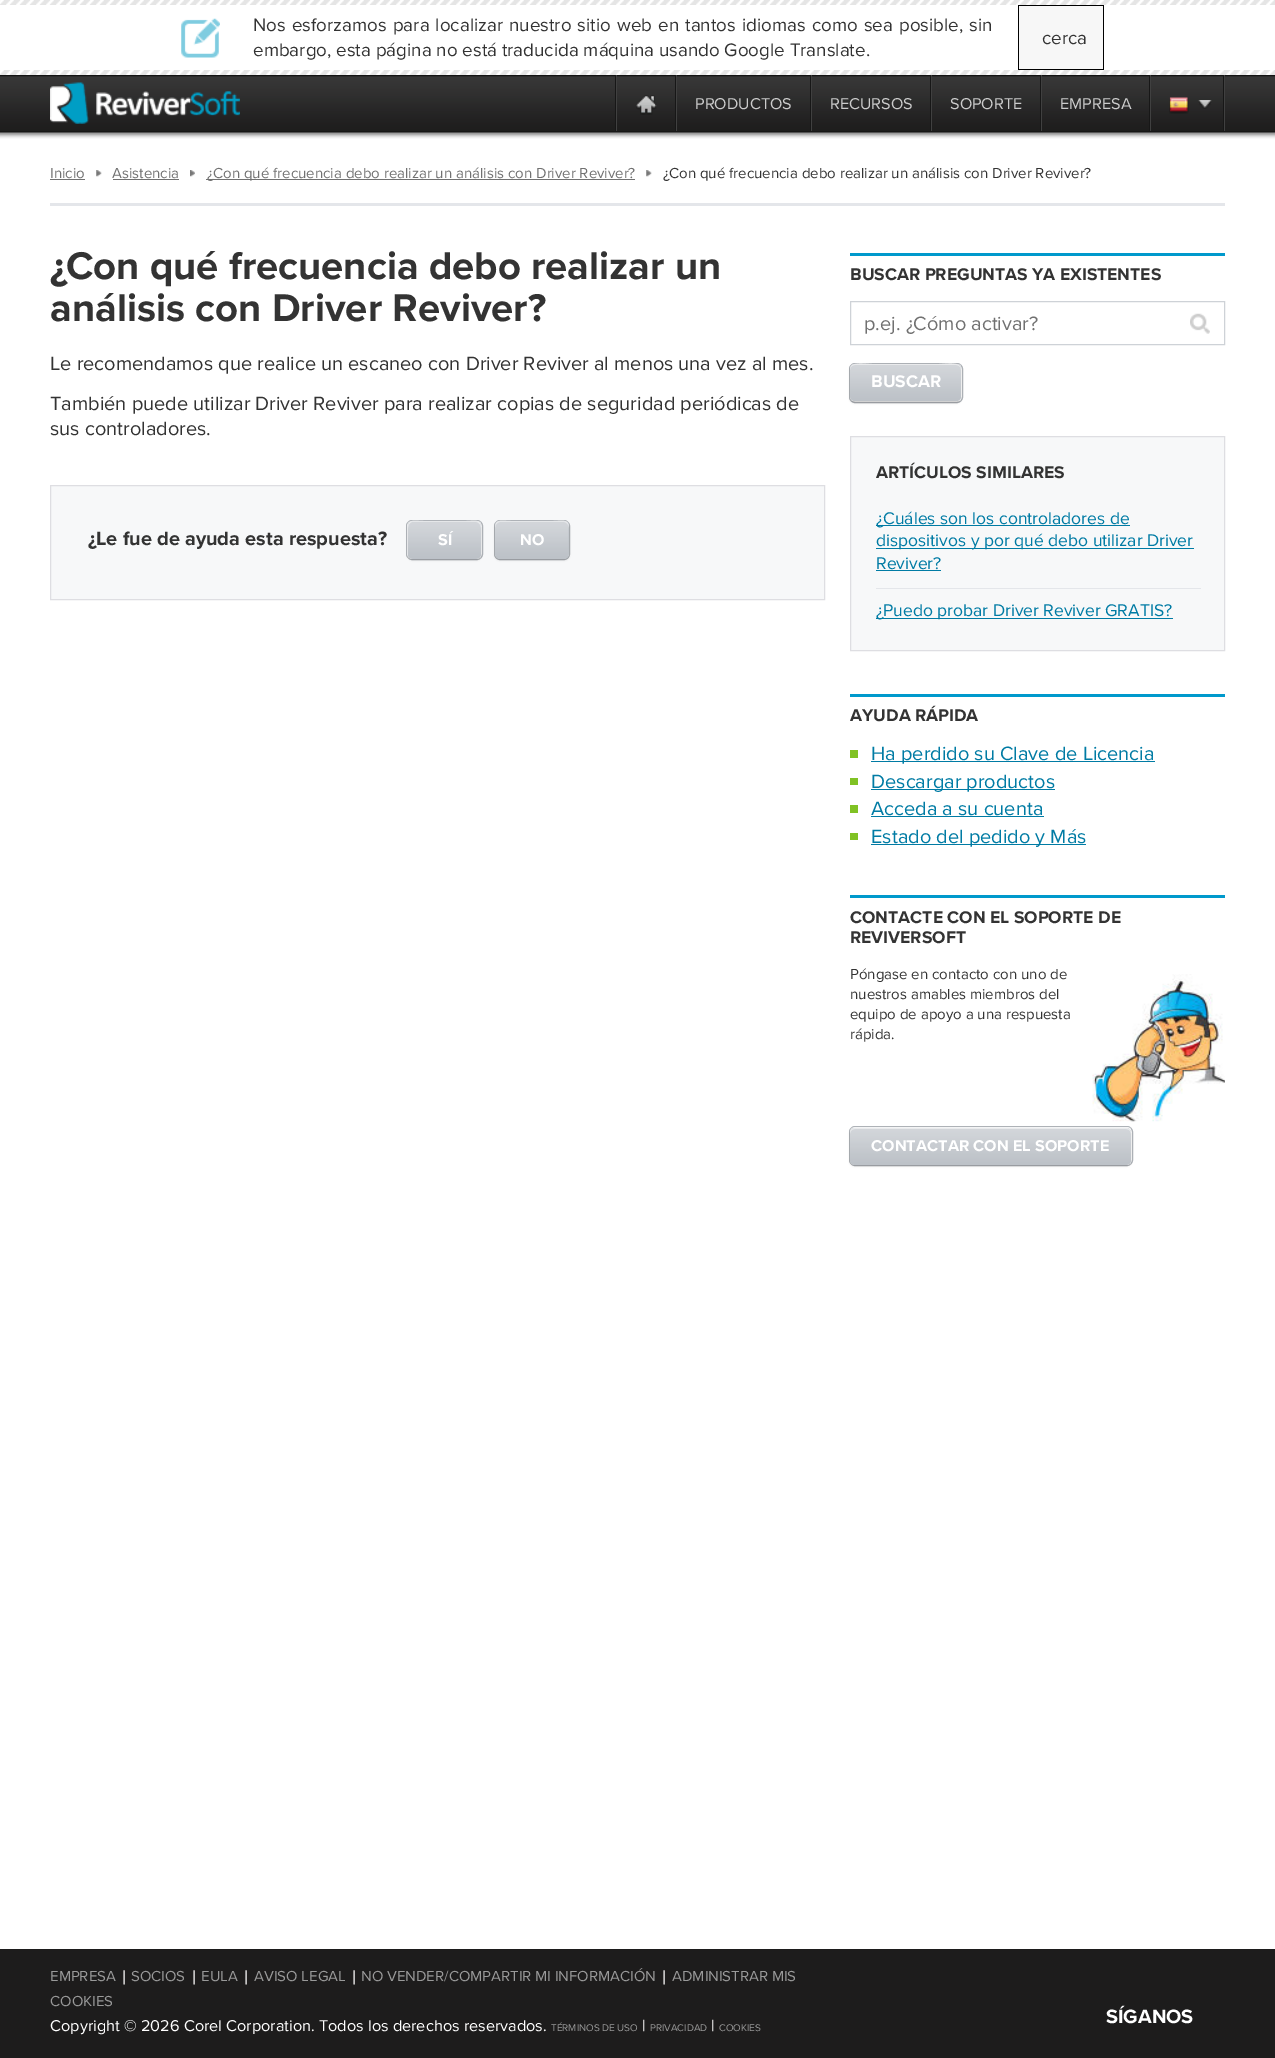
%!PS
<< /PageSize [1275 2058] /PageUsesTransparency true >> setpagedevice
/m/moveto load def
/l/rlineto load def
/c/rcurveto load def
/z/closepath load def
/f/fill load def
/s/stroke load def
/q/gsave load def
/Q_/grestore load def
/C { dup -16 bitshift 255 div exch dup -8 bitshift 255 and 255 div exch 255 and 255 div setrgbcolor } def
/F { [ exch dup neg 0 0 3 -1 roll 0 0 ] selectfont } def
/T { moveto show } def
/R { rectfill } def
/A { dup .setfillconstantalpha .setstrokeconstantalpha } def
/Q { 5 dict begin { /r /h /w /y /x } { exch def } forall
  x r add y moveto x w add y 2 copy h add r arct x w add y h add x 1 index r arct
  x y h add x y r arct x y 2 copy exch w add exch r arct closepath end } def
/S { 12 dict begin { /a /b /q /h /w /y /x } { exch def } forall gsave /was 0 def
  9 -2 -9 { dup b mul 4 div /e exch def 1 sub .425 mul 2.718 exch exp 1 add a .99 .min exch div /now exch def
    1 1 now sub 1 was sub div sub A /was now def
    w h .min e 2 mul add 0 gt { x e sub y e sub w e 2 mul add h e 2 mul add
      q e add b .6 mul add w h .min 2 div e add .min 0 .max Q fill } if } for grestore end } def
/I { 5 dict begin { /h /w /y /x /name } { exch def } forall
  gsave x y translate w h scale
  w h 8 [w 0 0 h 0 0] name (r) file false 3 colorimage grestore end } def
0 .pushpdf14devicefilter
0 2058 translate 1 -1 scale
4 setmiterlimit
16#FFFFFF C
0 0 1275 2058 R
(1.rgb) 0 75 1275 64 I
(2.rgb) 0 0 1275 5 I
(3.rgb) 181 18 39 40 I
/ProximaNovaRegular-Regular 18.75 F
16#333333 C
253 31 m 1.25 0 32 (Nos esforzamos para localizar nuestro sitio web en tantos idiomas como sea posible, sin) widthshow
(embargo, esta página no está traducida máquina usando Google Translate.) 253 56 T
16#F7F7F7 C
1019 6 84 63 R
16#000000 C
1018 5 86 1 R
1103 5 1 65 R
1018 69 86 1 R
1018 5 1 65 R
16#333333 C
(cerca) 1042 44 T
(4.rgb) 0 70 1275 5 I
(5.rgb) 50 82 190 42 I
16#404040 C
1224 75 1 56 R
16#171717 C
615 75 1 56 R
675 75 1 56 R
16#404040 C
616 75 1 56 R
(6.rgb) 636 95 21 20 I
16#171717 C
810 75 1 56 R
16#404040 C
676 75 1 56 R
/ProximaNovaRegular-Regular 16.25 F
16#CCCCCC C
(PRODUCTOS) 695 109 T
16#171717 C
930 75 1 56 R
16#404040 C
811 75 1 56 R
16#CCCCCC C
(RECURSOS) 830 109 T
16#171717 C
1040 75 1 56 R
16#404040 C
931 75 1 56 R
16#CCCCCC C
(SOPORTE) 950 109 T
16#171717 C
1149 75 1 56 R
16#404040 C
1041 75 1 56 R
16#CCCCCC C
(EMPRESA) 1060 109 T
16#171717 C
1223 75 1 56 R
16#404040 C
1150 75 1 56 R
(7.rgb) 1169 97 20 17 I
(8.rgb) 1198 100 14 9 I
16#E4E6EA C
50 203 1175 3 R
/ProximaNovaRegular-Regular 15 F
16#717171 C
(Inicio) 50 178 T
50 179 35 1 R
(9.rgb) 96 170 6 7 I
(Asistencia) 112 178 T
113 179 66 1 R
(10.rgb) 190 170 5 7 I
206 179 429 1 R
(¿Con qué frecuencia debo realizar un análisis con Driver Reviver?) 207 178 T
(9.rgb) 646 170 6 7 I
16#333333 C
(¿Con qué frecuencia debo realizar un análisis con Driver Reviver?) 663 178 T
/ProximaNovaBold-Regular 40 F
(¿Con qué frecuencia debo realizar un) 50 279 T
(análisis con Driver Reviver?) 50 321 T
/ProximaNovaRegular-Regular 20 F
(Le recomendamos que realice un escaneo con Driver Reviver al menos una vez al mes.) 50 370 T
(También puede utilizar Driver Reviver para realizar copias de seguridad periódicas de) 50 410 T
(sus controladores.) 50 435 T
16#F7F8F9 C
50.5 485.5 m 774 0 l 0 114 l -774 0 l z q f Q_
16#DEDEE2 C
s
/ProximaNovaBold-Regular 20 F
16#333333 C
(¿Le fue de ayuda esta respuesta?) 88 545 T
16#AFB3B8 C
406.5 520.5 76 39 5.5 Q s
16#000000 C
408 523 73 37 5 1 .19 S
16#BDC2C8 C
408 521 73 38 5 Q f
(11.rgb) 407 521 74 38 I
0.5 A
16#FFFFFF C
412 522 m 64 0 l 3 0 5 3 5 6 c 0 -10 -7 -7 -15 -7 c -42 0 l -9 0 -16 -3 -16 7 c 0 -3 2 -6 4 -6 c z f
/ProximaNovaBold-Regular 16.25 F
1 A
(SÍ) 438 545 T
16#AFB3B8 C
494.5 520.5 75 39 5.5 Q s
16#000000 C
495 523 74 37 5 1 .19 S
16#BDC2C8 C
495 521 74 38 5 Q f
(12.rgb) 495 521 74 35 I
0.5 A
16#FFFFFF C
500 522 m 64 0 l 3 0 5 3 5 6 c 0 -10 -8 -7 -16 -7 c -42 0 l -8 0 -16 -3 -16 7 c 0 -3 2 -6 5 -6 c z f
1 A
(NO) 520 545 T
16#0099CC C
850 253 375 3 R
/ProximaNovaBold-Regular 17.5 F
16#333333 C
(BUSCAR PREGUNTAS YA EXISTENTES) 850 280 T
16#CED2D7 C
850.5 301.5 374 43 rectstroke
/ProximaNovaRegular-Regular 20 F
16#717171 C
(p.ej. ¿Cómo activar?) 864 330 T
(13.rgb) 1190 313 20 21 I
16#AFB3B8 C
849.5 363.5 113 39 5.5 Q s
16#000000 C
850 365 111 38 5 1 .19 S
(14.rgb) 850 364 111 37 I
0.5 A
16#FFFFFF C
855 365 m 101 0 l 3 0 5 2 5 5 c 0 -10 -17 -6 -22 -6 c -67 0 l -5 0 -22 -4 -22 6 c 0 -3 2 -5 5 -5 c z f
/ProximaNovaBold-Regular 17.5 F
1 A
(BUSCAR) 871 387 T
16#F7F8F9 C
850.5 436.5 m 374 0 l 0 214 l -374 0 l z q f Q_
16#DEDEE2 C
s
16#333333 C
(ARTÍCULOS SIMILARES) 876 478 T
16#007BA4 C
876 525 254 1 R
/ProximaNovaRegular-Regular 17.5 F
(¿Cuáles son los controladores de) 876 524 T
876 548 318 1 R
(dispositivos y por qué debo utilizar Driver) 876 546 T
(Reviver?) 876 569 T
876 570 65 1 R
16#E4E6EA C
876 588 325 1 R
16#007BA4 C
876 618 297 1 R
(¿Puedo probar Driver Reviver GRATIS?) 876 616 T
16#0099CC C
850 694 375 3 R
/ProximaNovaBold-Regular 17.5 F
16#333333 C
(AYUDA RÁPIDA) 850 721 T
16#80C224 C
850 750 8 8 R
16#007BA4 C
871 761 284 1 R
/ProximaNovaRegular-Regular 20 F
(Ha perdido su Clave de Licencia) 871 760 T
16#80C224 C
850 778 8 7 R
16#007BA4 C
871 789 184 1 R
(Descargar productos) 871 788 T
16#80C224 C
850 805 8 8 R
16#007BA4 C
(Acceda a su cuenta) 871 815 T
871 816 173 1 R
16#80C224 C
850 833 8 7 R
16#007BA4 C
871 844 215 1 R
(Estado del pedido y Más) 871 843 T
16#0099CC C
850 895 375 3 R
/ProximaNovaBold-Regular 17.5 F
16#333333 C
(CONTACTE CON EL SOPORTE DE) 850 923 T
(REVIVERSOFT) 850 943 T
/ProximaNovaRegular-Regular 15 F
(Póngase en contacto con uno de) 850 979 T
(nuestros amables miembros del) 850 999 T
(equipo de apoyo a una respuesta) 850 1019 T
(rápida.) 850 1039 T
(15.rgb) 1092 974 133 148 I
16#AFB3B8 C
849.5 1126.5 283 39 5.5 Q s
16#000000 C
850 1129 281 37 5 1 .19 S
(16.rgb) 850 1127 281 38 I
16#E9EAEC C
855 1129 m 271 0 l 3 0 5 2 5 5 c 0 -1 l 0 -3 -2 -5 -5 -5 c -271 0 l -3 0 -5 2 -5 5 c 0 1 l 0 -3 2 -5 5 -5 c z f
/ProximaNovaBold-Regular 16.25 F
16#FFFFFF C
(CONTACTAR CON EL SOPORTE) 871 1151 T
16#1D1C1C C
0 1949 1275 109 R
/ProximaNovaRegular-Regular 15 F
16#999999 C
(EMPRESA) 50 1981 T
/ProximaNovaRegular-Regular 20 F
16#FFFFFF C
(|) 122 1984 T
/ProximaNovaRegular-Regular 15 F
16#999999 C
(SOCIOS) 131 1981 T
/ProximaNovaRegular-Regular 20 F
16#FFFFFF C
(|) 192 1984 T
/ProximaNovaRegular-Regular 15 F
16#999999 C
(EULA) 201 1981 T
/ProximaNovaRegular-Regular 20 F
16#FFFFFF C
(|) 244 1984 T
/ProximaNovaRegular-Regular 15 F
16#999999 C
(AVISO LEGAL) 254 1981 T
/ProximaNovaRegular-Regular 20 F
16#FFFFFF C
(|) 352 1984 T
/ProximaNovaRegular-Regular 15 F
16#999999 C
(NO VENDER/COMPARTIR MI INFORMACIÓN) 361 1981 T
/ProximaNovaRegular-Regular 20 F
16#FFFFFF C
(|) 662 1984 T
/ProximaNovaRegular-Regular 15 F
16#999999 C
(ADMINISTRAR MIS) 672 1981 T
(COOKIES) 50 2006 T
/ProximaNovaBold-Regular 20 F
16#FFFFFF C
(SÍGANOS) 1106 2023 T
/ProximaNovaRegular-Regular 16.25 F
(Copyright © 2026 Corel Corporation. Todos los derechos reservados.) 50 2031 T
/ProximaNovaRegular-Regular 10 F
16#999999 C
(TÉRMINOS DE USO) 551 2031 T
/ProximaNovaRegular-Regular 16.25 F
16#FFFFFF C
(|) 642 2031 T
/ProximaNovaRegular-Regular 10 F
16#999999 C
(PRIVACIDAD) 650 2031 T
/ProximaNovaRegular-Regular 16.25 F
16#FFFFFF C
(|) 711 2031 T
/ProximaNovaRegular-Regular 10 F
16#999999 C
(COOKIES) 719 2031 T
.poppdf14devicefilter showpage
